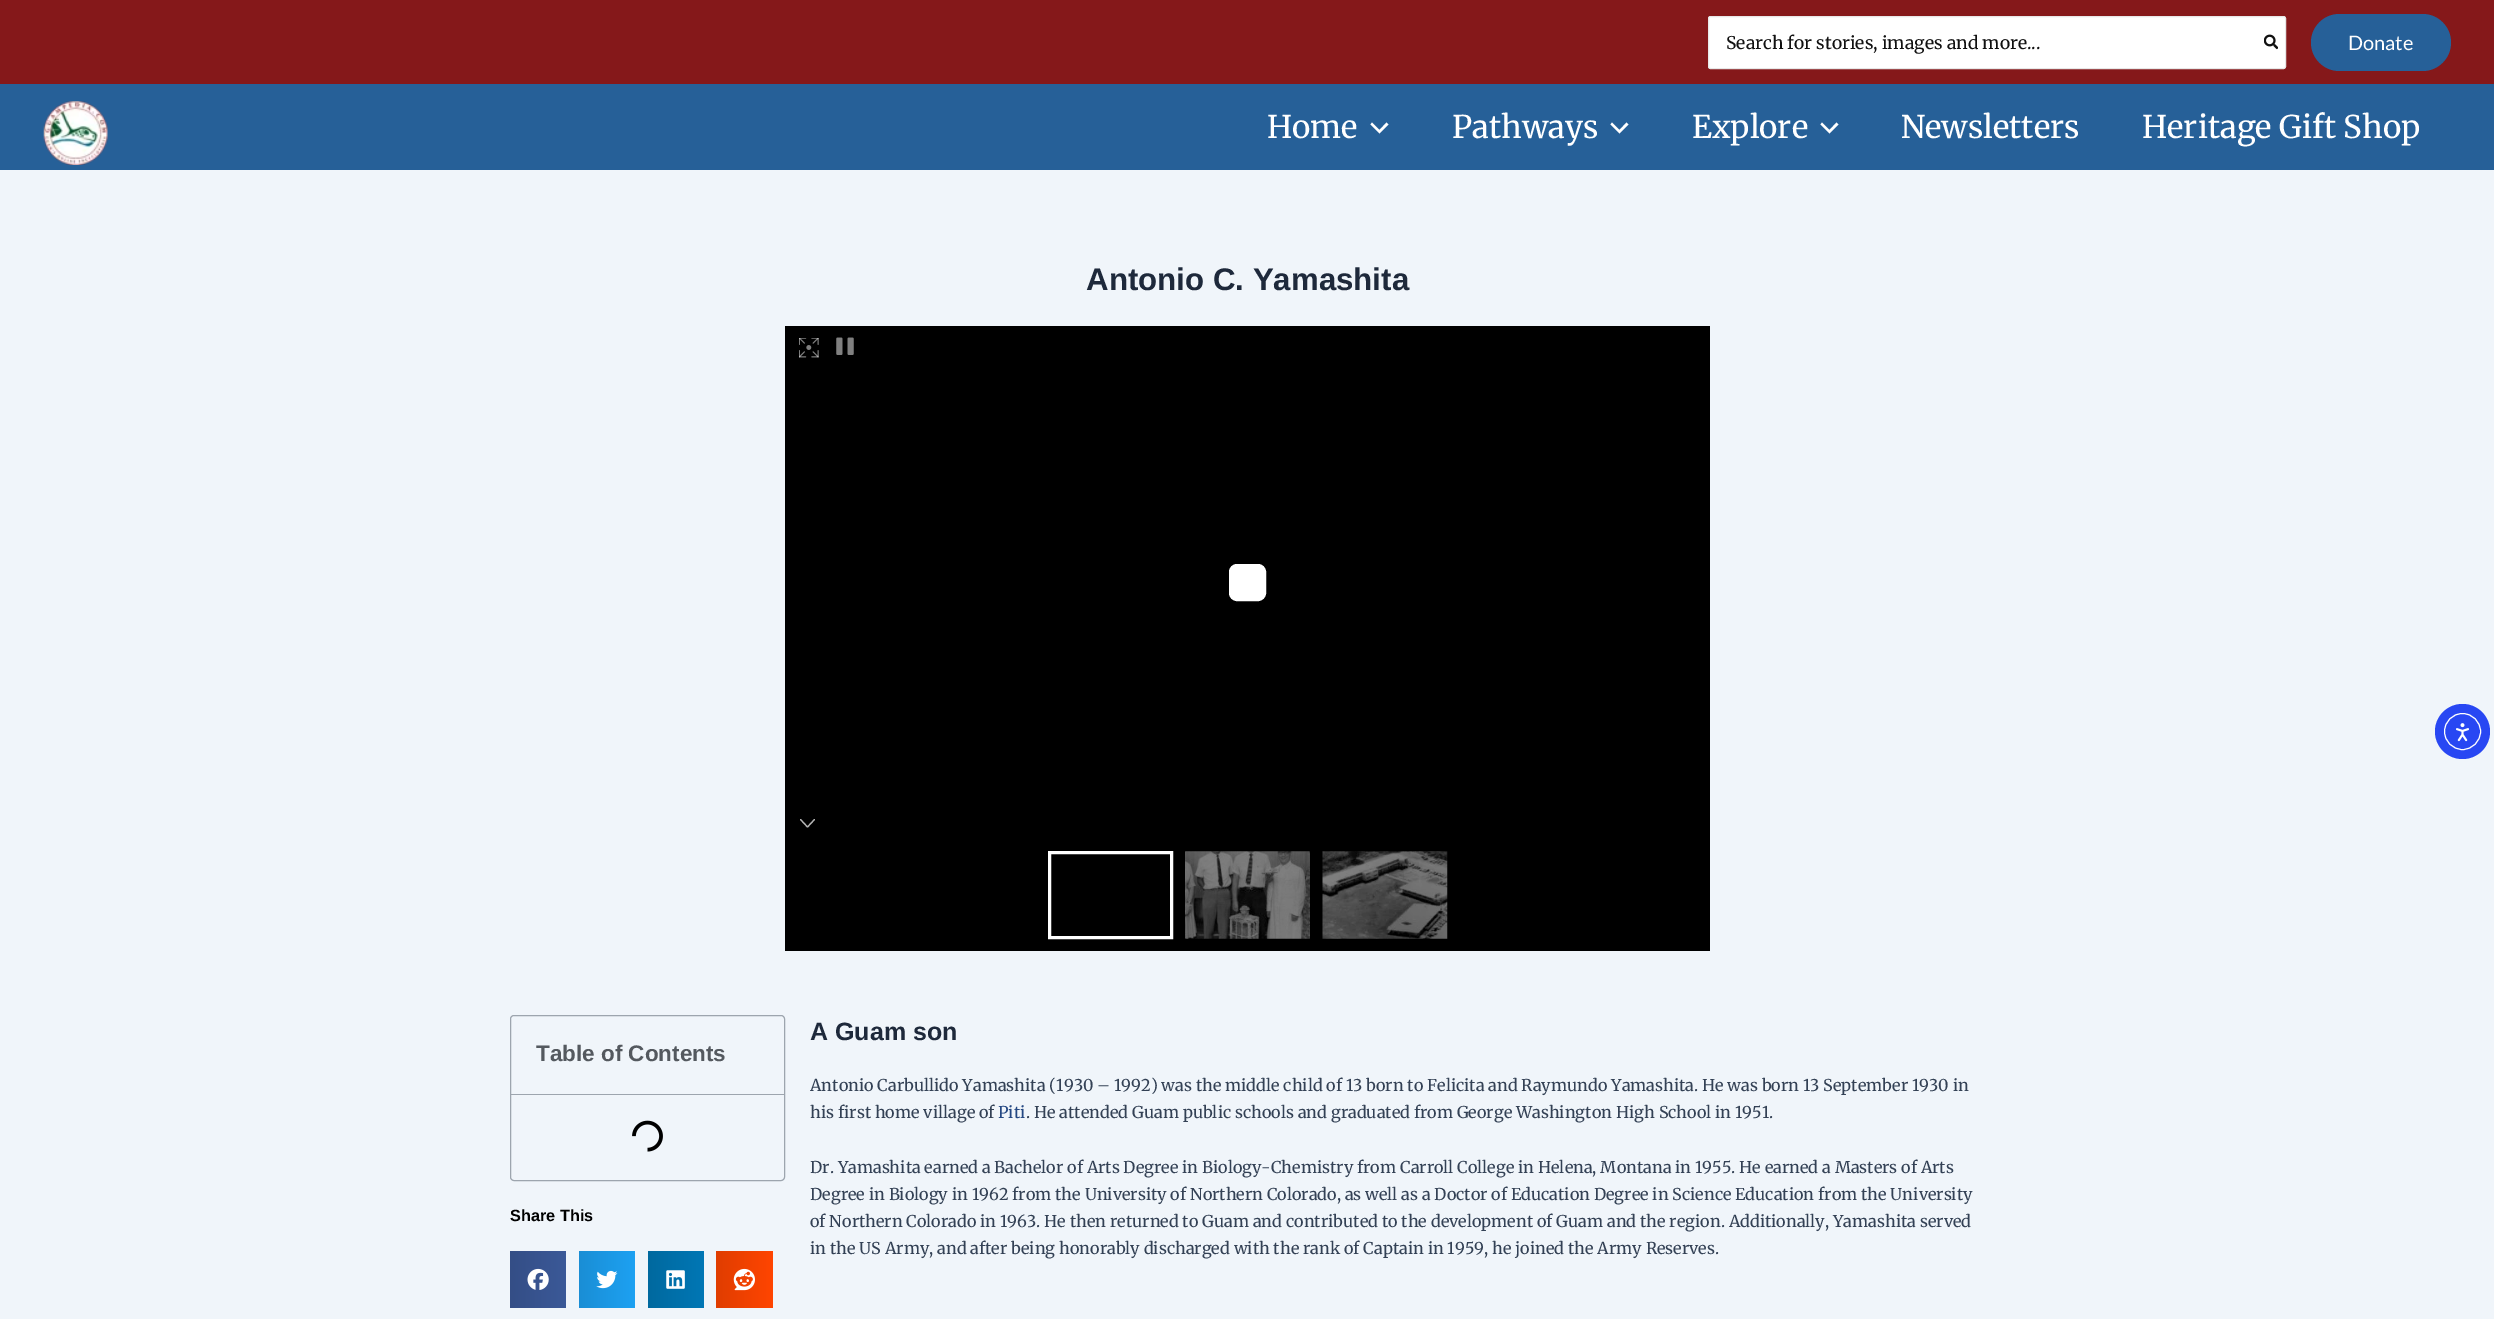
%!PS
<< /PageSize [2494 1319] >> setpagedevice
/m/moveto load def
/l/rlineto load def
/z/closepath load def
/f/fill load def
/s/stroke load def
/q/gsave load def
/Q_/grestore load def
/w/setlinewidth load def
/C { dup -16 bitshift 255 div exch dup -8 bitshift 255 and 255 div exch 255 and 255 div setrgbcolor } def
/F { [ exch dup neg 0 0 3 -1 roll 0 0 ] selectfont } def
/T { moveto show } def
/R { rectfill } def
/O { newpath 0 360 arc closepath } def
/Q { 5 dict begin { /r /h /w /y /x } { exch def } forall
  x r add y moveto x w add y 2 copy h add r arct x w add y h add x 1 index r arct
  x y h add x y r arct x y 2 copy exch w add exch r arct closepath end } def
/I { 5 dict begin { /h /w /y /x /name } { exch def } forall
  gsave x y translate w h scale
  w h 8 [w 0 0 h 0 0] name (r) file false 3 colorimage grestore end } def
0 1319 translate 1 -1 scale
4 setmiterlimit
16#F0F5FA C
0 0 2494 1319 R
16#85181A C
0 0 2494 84 R
16#FFFFFF C
1708.5 16.5 577 52 2 Q q f Q_
16#E7E7E7 C
s
/Merriweather-Light 17.5 F
16#111111 C
(Search for stories, images and more...) 1726 49 T
(1.rgb) 2264 34 14 16 I
16#266098 C
2311 14 140 57 28.5 Q f
/Lato-Regular 20 F
16#FFFFFF C
(Donate) 2348 50 T
16#266098 C
0 84 2494 86 R
(2.rgb) 43 101 65 64 I
/Merriweather-Light 31.25 F
16#FFFFFF C
(Home) 1267 138 T
1370.5 124.5 m 9 9 l 9 -9 l -2 -2 l -7 7.5 l -7.5 -7.5 l z f
(Pathways) 1452 138 T
1610.5 124.5 m 9 9 l 9 -9 l -2 -2 l -7 7.5 l -7.5 -7.5 l z f
(Explore) 1692 138 T
1820.5 124.5 m 9 9 l 9 -9 l -2 -2 l -7 7.5 l -7.5 -7.5 l z f
(Newsletters) 1901 138 T
(Heritage Gift Shop) 2142 138 T
/LiberationSans-Bold 31.25 F
16#1E293B C
(Antonio C. Yamashita) 1086 290 T
16#000000 C
785 326 925 625 R
(3.rgb) 799 338 20 20 I
(4.rgb) 836 337 18 18 I
16#FFFFFF C
1230.5 565.5 34 34 6.5 Q q f Q_
3 w
s
16#B3B3B3 C
1.2 w
1 setlinecap
1 setlinejoin
800.5 819.5 m 7 7.5 l 7 -7.5 l s
16#FFFFFF C
3 w
0 setlinecap
0 setlinejoin
1049.5 852.5 122 85 rectstroke
(5.rgb) 1185 851 125 88 I
(6.rgb) 1322 851 126 88 I
16#9DA5AE C
1 w
510.5 1015.5 274 165 3.5 Q s
511 1094 273 1 R
/LiberationSans-Bold 22.5 F
16#54595F C
(Table of Contents) 536 1061 T
(7.rgb) 632 1120 31 32 I
/LiberationSans-Bold 16.25 F
16#000000 C
(Share This) 510 1221 T
q 510 1251 m 56 0 l 0 57 l -56 0 l z clip newpath
<< /ShadingType 2 /ColorSpace /DeviceRGB /Coords [510 1279 566 1279] /Extend [true true] /Function << /FunctionType 2 /Domain [0 1] /C0 [.204 .306 .525] /C1 [.231 .349 .596] /N 1 >> >> shfill Q_
(8.rgb) 527 1268 22 22 I
q 579 1251 m 56 0 l 0 57 l -56 0 l z clip newpath
<< /ShadingType 2 /ColorSpace /DeviceRGB /Coords [579 1279 635 1279] /Extend [true true] /Function << /FunctionType 2 /Domain [0 1] /C0 [.102 .557 .835] /C1 [.114 .631 .949] /N 1 >> >> shfill Q_
(9.rgb) 596 1270 22 19 I
q 648 1251 m 56 0 l 0 57 l -56 0 l z clip newpath
<< /ShadingType 2 /ColorSpace /DeviceRGB /Coords [648 1279 704 1279] /Extend [true true] /Function << /FunctionType 2 /Domain [0 1] /C0 [0 .412 .624] /C1 [0 .467 .71] /N 1 >> >> shfill Q_
(10.rgb) 666 1270 19 19 I
q 716 1251 m 57 0 l 0 57 l -57 0 l z clip newpath
<< /ShadingType 2 /ColorSpace /DeviceRGB /Coords [716 1279 773 1279] /Extend [true true] /Function << /FunctionType 2 /Domain [0 1] /C0 [.878 .239 0] /C1 [1 .271 0] /N 1 >> >> shfill Q_
(11.rgb) 733 1268 22 23 I
/LiberationSans-Bold 25 F
16#1E293B C
(A Guam son) 810 1040 T
/Merriweather-Light 16.25 F
16#334155 C
(Antonio Carbullido Yamashita \(1930 – 1992\) was the middle child of 13 born to Felicita and Raymundo Yamashita. He was born 13 September 1930 in) 810 1091 T
(his first home village of) 810 1118 T
16#244883 C
(Piti) 998 1118 T
16#334155 C
(. He attended Guam public schools and graduated from George Washington High School in 1951.) 1026 1118 T
(Dr. Yamashita earned a Bachelor of Arts Degree in Biology-Chemistry from Carroll College in Helena, Montana in 1955. He earned a Masters of Arts) 810 1173 T
(Degree in Biology in 1962 from the University of Northern Colorado, as well as a Doctor of Education Degree in Science Education from the University) 810 1200 T
(of Northern Colorado in 1963. He then returned to Guam and contributed to the development of Guam and the region. Additionally, Yamashita served) 810 1227 T
(in the US Army, and after being honorably discharged with the rank of Captain in 1959, he joined the Army Reserves.) 810 1254 T
16#2847F3 C
2462.5 731.5 27.5 O f
16#FFFFFF C
2462.5 731.5 18 O s
(12.rgb) 2456 723 13 19 I
showpage
